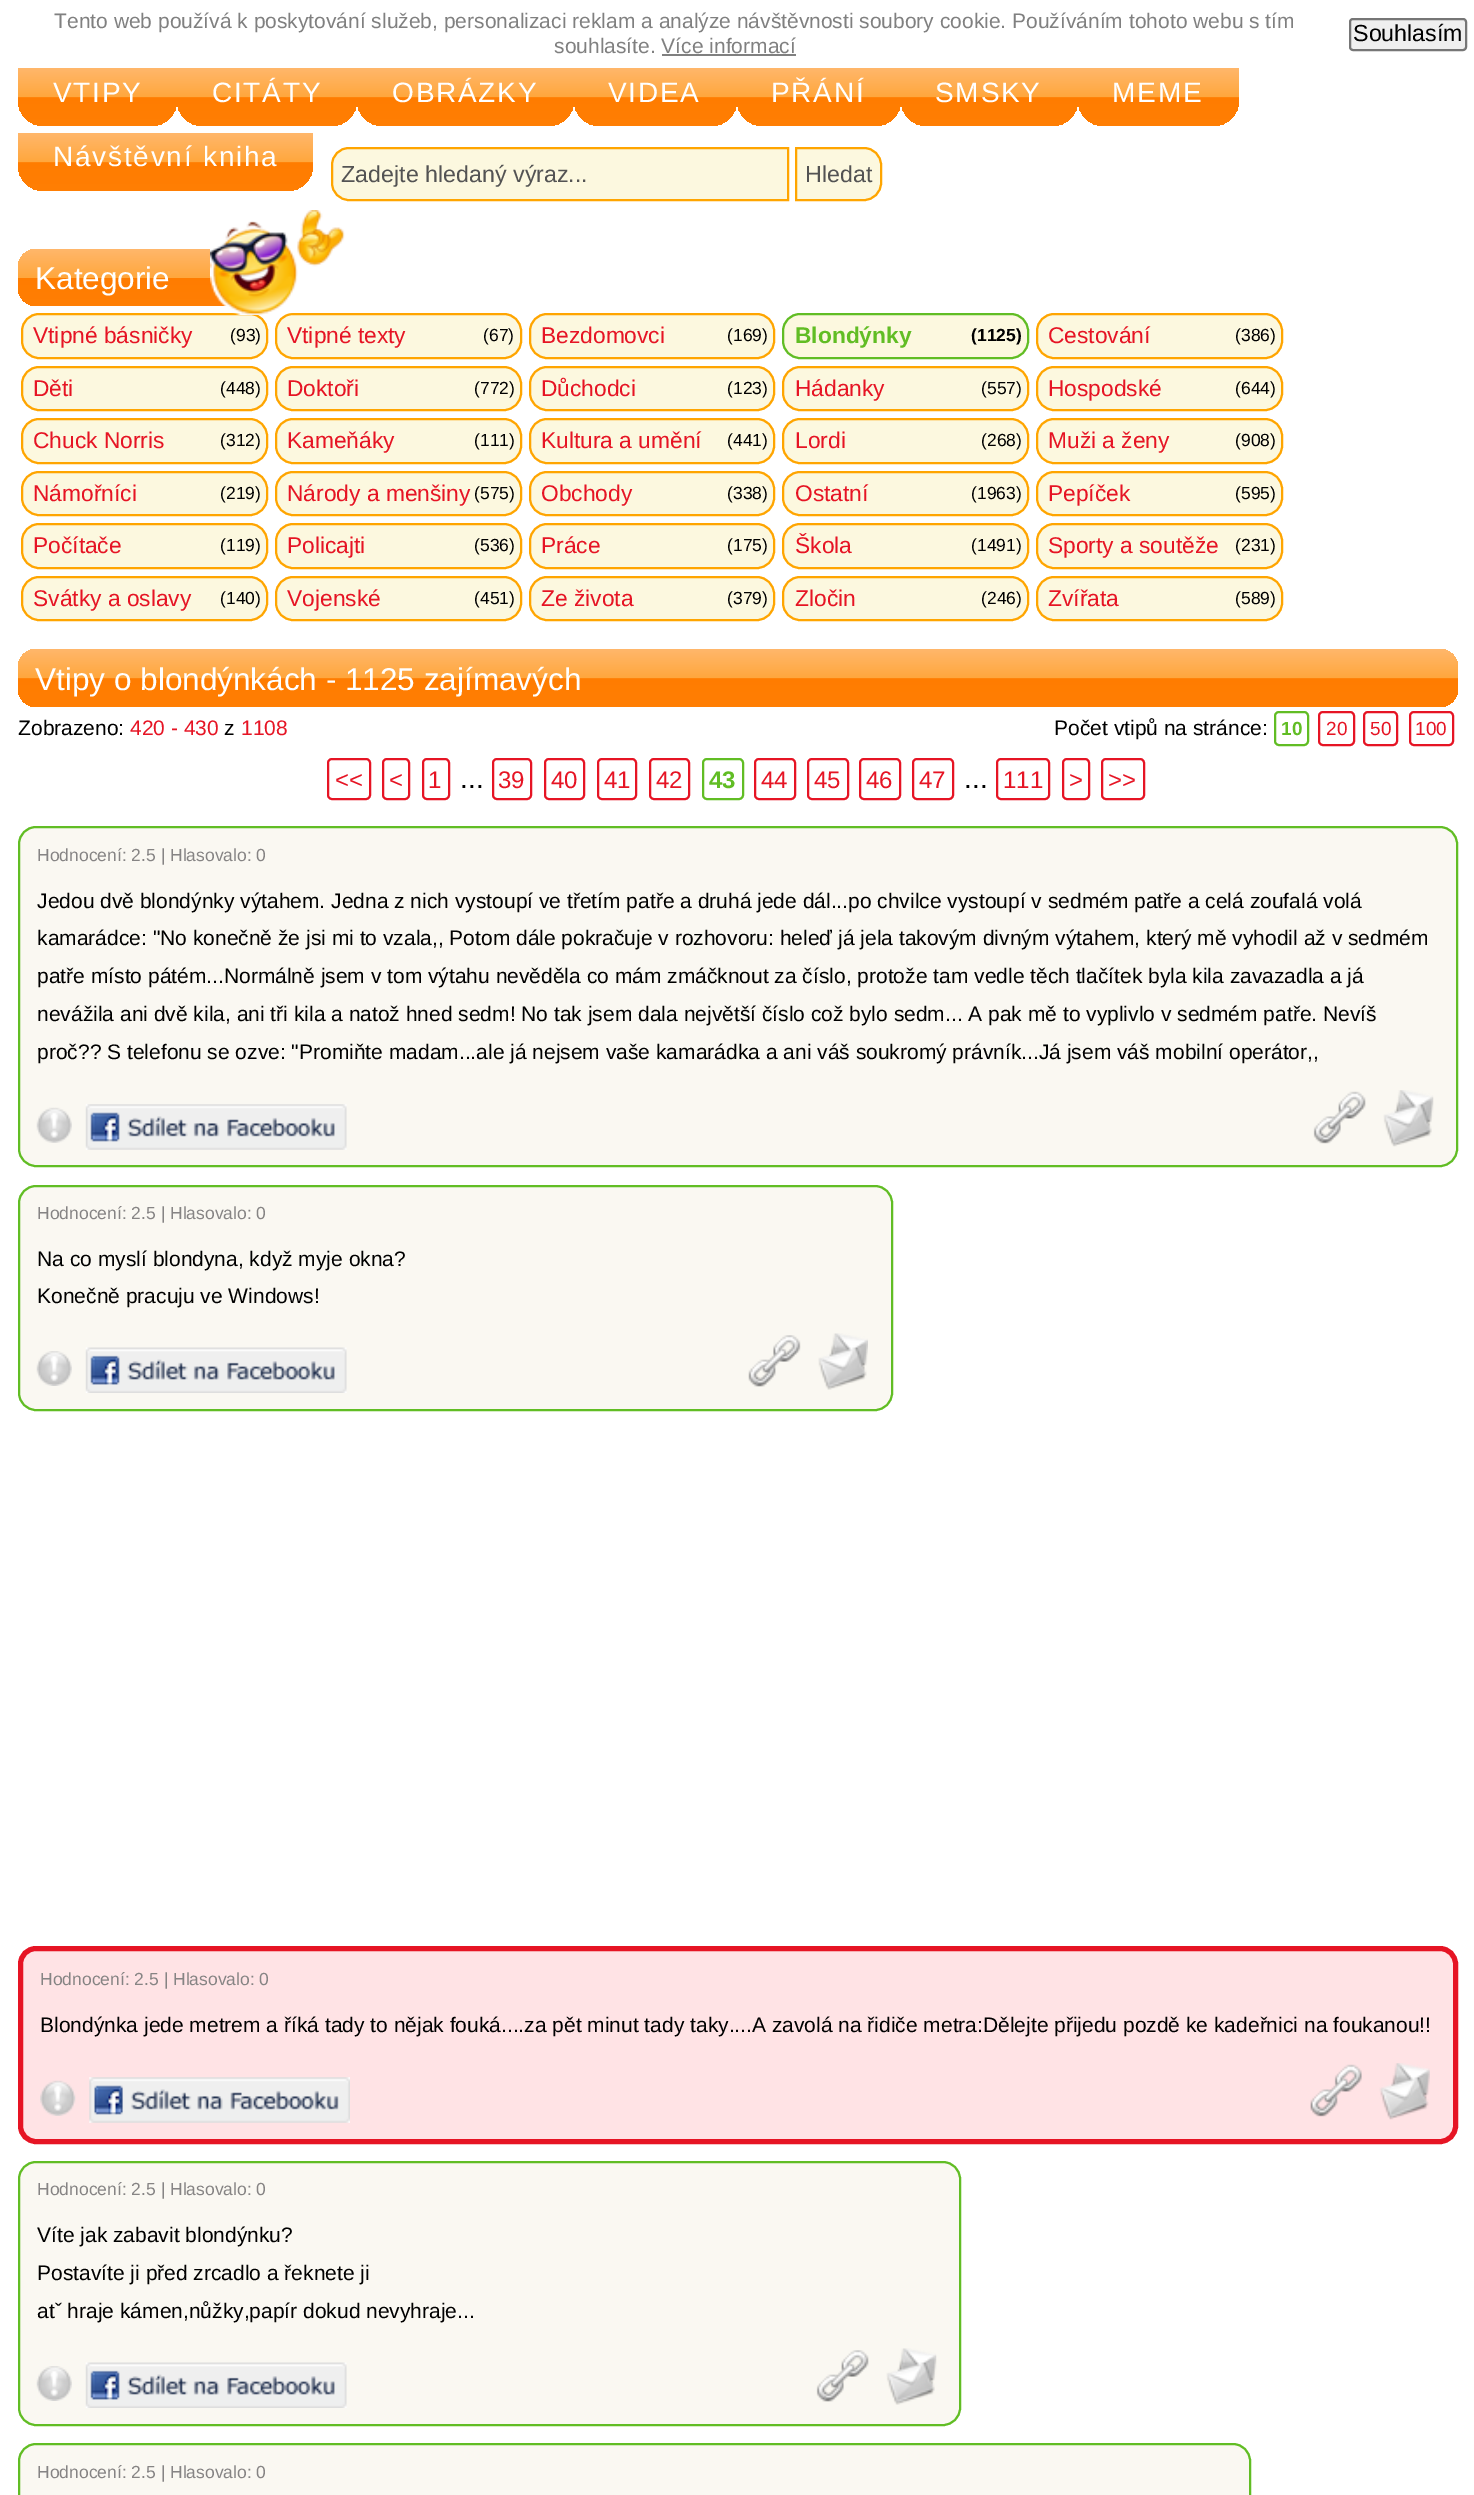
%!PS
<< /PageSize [1474 2495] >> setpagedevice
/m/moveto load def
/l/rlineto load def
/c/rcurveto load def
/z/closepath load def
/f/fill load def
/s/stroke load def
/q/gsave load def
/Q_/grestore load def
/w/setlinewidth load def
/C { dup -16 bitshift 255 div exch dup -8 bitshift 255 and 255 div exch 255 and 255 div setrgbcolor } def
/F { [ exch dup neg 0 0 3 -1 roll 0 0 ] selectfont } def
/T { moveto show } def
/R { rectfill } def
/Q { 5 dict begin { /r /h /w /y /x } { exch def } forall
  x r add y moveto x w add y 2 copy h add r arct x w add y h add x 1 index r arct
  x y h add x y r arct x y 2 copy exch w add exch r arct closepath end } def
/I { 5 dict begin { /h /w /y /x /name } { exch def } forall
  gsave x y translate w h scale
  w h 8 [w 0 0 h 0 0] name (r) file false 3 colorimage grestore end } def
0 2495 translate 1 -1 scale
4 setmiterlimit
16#FFFFFF C
0 0 1474 2495 R
(1.rgb) 0 0 1474 65 I
/LiberationSans-Regular 21 F
16#808080 C
(Tento web používá k poskytování služeb, personalizaci reklam a analýze návštěvnosti soubory cookie. Používáním tohoto webu s tím) 54 28 T
(souhlasíte. Více informací) 554 53 T
662 54 134 2 R
16#EFEFEF C
1350 19 116 31 3 Q q f Q_
16#767676 C
2 w
s
/LiberationSans-Regular 23.25 F
16#000000 C
(Souhlasím) 1353 41 T
q 18 68 m 159 0 l 0 32 l 0 14.5 -11.5 26 -26 26 c -107 0 l -14.5 0 -26 -11.5 -26 -26 c z clip newpath
<< /ShadingType 2 /ColorSpace /DeviceRGB /Coords [97 68 97 126] /Extend [true true] /Function << /FunctionType 3 /Domain [0 1] /Functions [<< /FunctionType 2 /Domain [0 1] /C0 [1 .718 .42] /C1 [1 .655 .239] /N 1 >> << /FunctionType 2 /Domain [0 1] /C0 [1 .655 .239] /C1 [1 .486 0] /N 1 >> << /FunctionType 2 /Domain [0 1] /C0 [1 .486 0] /C1 [1 .498 .016] /N 1 >>] /Bounds [.5 .51] /Encode [0 1 0 1 0 1] >> >> shfill Q_
/LiberationSans-Regular 28 F
16#FFFFFF C
53 102 m 1.75 0 (VTIPY) ashow
q 177 68 m 180 0 l 0 32 l 0 14.5 -11.5 26 -26 26 c -128 0 l -14.5 0 -26 -11.5 -26 -26 c z clip newpath
<< /ShadingType 2 /ColorSpace /DeviceRGB /Coords [267 68 267 126] /Extend [true true] /Function << /FunctionType 3 /Domain [0 1] /Functions [<< /FunctionType 2 /Domain [0 1] /C0 [1 .718 .42] /C1 [1 .655 .239] /N 1 >> << /FunctionType 2 /Domain [0 1] /C0 [1 .655 .239] /C1 [1 .486 0] /N 1 >> << /FunctionType 2 /Domain [0 1] /C0 [1 .486 0] /C1 [1 .498 .016] /N 1 >>] /Bounds [.5 .51] /Encode [0 1 0 1 0 1] >> >> shfill Q_
212 102 m 1.75 0 (CITÁTY) ashow
q 357 68 m 217 0 l 0 32 l 0 14.5 -11.5 26 -26 26 c -165 0 l -14.5 0 -26 -11.5 -26 -26 c z clip newpath
<< /ShadingType 2 /ColorSpace /DeviceRGB /Coords [466 68 466 126] /Extend [true true] /Function << /FunctionType 3 /Domain [0 1] /Functions [<< /FunctionType 2 /Domain [0 1] /C0 [1 .718 .42] /C1 [1 .655 .239] /N 1 >> << /FunctionType 2 /Domain [0 1] /C0 [1 .655 .239] /C1 [1 .486 0] /N 1 >> << /FunctionType 2 /Domain [0 1] /C0 [1 .486 0] /C1 [1 .498 .016] /N 1 >>] /Bounds [.5 .51] /Encode [0 1 0 1 0 1] >> >> shfill Q_
392 102 m 1.75 0 (OBRÁZKY) ashow
q 574 68 m 163 0 l 0 32 l 0 14.5 -11.5 26 -26 26 c -111 0 l -14.5 0 -26 -11.5 -26 -26 c z clip newpath
<< /ShadingType 2 /ColorSpace /DeviceRGB /Coords [655 68 655 126] /Extend [true true] /Function << /FunctionType 3 /Domain [0 1] /Functions [<< /FunctionType 2 /Domain [0 1] /C0 [1 .718 .42] /C1 [1 .655 .239] /N 1 >> << /FunctionType 2 /Domain [0 1] /C0 [1 .655 .239] /C1 [1 .486 0] /N 1 >> << /FunctionType 2 /Domain [0 1] /C0 [1 .486 0] /C1 [1 .498 .016] /N 1 >>] /Bounds [.5 .51] /Encode [0 1 0 1 0 1] >> >> shfill Q_
608 102 m 1.75 0 (VIDEA) ashow
q 737 68 m 164 0 l 0 32 l 0 14.5 -11.5 26 -26 26 c -112 0 l -14.5 0 -26 -11.5 -26 -26 c z clip newpath
<< /ShadingType 2 /ColorSpace /DeviceRGB /Coords [819 68 819 126] /Extend [true true] /Function << /FunctionType 3 /Domain [0 1] /Functions [<< /FunctionType 2 /Domain [0 1] /C0 [1 .718 .42] /C1 [1 .655 .239] /N 1 >> << /FunctionType 2 /Domain [0 1] /C0 [1 .655 .239] /C1 [1 .486 0] /N 1 >> << /FunctionType 2 /Domain [0 1] /C0 [1 .486 0] /C1 [1 .498 .016] /N 1 >>] /Bounds [.5 .51] /Encode [0 1 0 1 0 1] >> >> shfill Q_
771 102 m 1.75 0 (PŘÁNÍ) ashow
q 901 68 m 177 0 l 0 32 l 0 14.5 -11.5 26 -26 26 c -125 0 l -14.5 0 -26 -11.5 -26 -26 c z clip newpath
<< /ShadingType 2 /ColorSpace /DeviceRGB /Coords [990 68 990 126] /Extend [true true] /Function << /FunctionType 3 /Domain [0 1] /Functions [<< /FunctionType 2 /Domain [0 1] /C0 [1 .718 .42] /C1 [1 .655 .239] /N 1 >> << /FunctionType 2 /Domain [0 1] /C0 [1 .655 .239] /C1 [1 .486 0] /N 1 >> << /FunctionType 2 /Domain [0 1] /C0 [1 .486 0] /C1 [1 .498 .016] /N 1 >>] /Bounds [.5 .51] /Encode [0 1 0 1 0 1] >> >> shfill Q_
935 102 m 1.75 0 (SMSKY) ashow
q 1078 68 m 161 0 l 0 32 l 0 14.5 -11.5 26 -26 26 c -109 0 l -14.5 0 -26 -11.5 -26 -26 c z clip newpath
<< /ShadingType 2 /ColorSpace /DeviceRGB /Coords [1159 68 1159 126] /Extend [true true] /Function << /FunctionType 3 /Domain [0 1] /Functions [<< /FunctionType 2 /Domain [0 1] /C0 [1 .718 .42] /C1 [1 .655 .239] /N 1 >> << /FunctionType 2 /Domain [0 1] /C0 [1 .655 .239] /C1 [1 .486 0] /N 1 >> << /FunctionType 2 /Domain [0 1] /C0 [1 .486 0] /C1 [1 .498 .016] /N 1 >>] /Bounds [.5 .51] /Encode [0 1 0 1 0 1] >> >> shfill Q_
1112 102 m 1.75 0 (MEME) ashow
q 18 133 m 295 0 l 0 32 l 0 14.5 -11.5 26 -26 26 c -243 0 l -14.5 0 -26 -11.5 -26 -26 c z clip newpath
<< /ShadingType 2 /ColorSpace /DeviceRGB /Coords [165 133 165 191] /Extend [true true] /Function << /FunctionType 3 /Domain [0 1] /Functions [<< /FunctionType 2 /Domain [0 1] /C0 [1 .718 .42] /C1 [1 .655 .239] /N 1 >> << /FunctionType 2 /Domain [0 1] /C0 [1 .655 .239] /C1 [1 .486 0] /N 1 >> << /FunctionType 2 /Domain [0 1] /C0 [1 .486 0] /C1 [1 .498 .016] /N 1 >>] /Bounds [.5 .51] /Encode [0 1 0 1 0 1] >> >> shfill Q_
53 166 m 1.75 0 (Návštěvní kniha) ashow
16#FCF8DF C
349 148 m 439 0 l 0 52 l -439 0 l -9.5 0 -17 -7.5 -17 -17 c 0 -18 l 0 -9.5 7.5 -17 17 -17 c z q f Q_
16#FFA500 C
s
/LiberationSans-Regular 23.25 F
16#535353 C
(Zadejte hledaný výraz...) 341 182 T
16#FCF8DF C
796 148 m 68 0 l 9.5 0 17 7.5 17 17 c 0 18 l 0 9.5 -7.5 17 -17 17 c -68 0 l z q f Q_
16#FFA500 C
s
16#535353 C
(Hledat) 805 182 T
q 18 249 266 57 18 Q clip newpath
<< /ShadingType 2 /ColorSpace /DeviceRGB /Coords [151 249 151 306] /Extend [true true] /Function << /FunctionType 3 /Domain [0 1] /Functions [<< /FunctionType 2 /Domain [0 1] /C0 [1 .718 .42] /C1 [1 .655 .239] /N 1 >> << /FunctionType 2 /Domain [0 1] /C0 [1 .655 .239] /C1 [1 .486 0] /N 1 >> << /FunctionType 2 /Domain [0 1] /C0 [1 .486 0] /C1 [1 .498 .016] /N 1 >>] /Bounds [.5 .51] /Encode [0 1 0 1 0 1] >> >> shfill Q_
/LiberationSans-Regular 31.5 F
16#FFFFFF C
(Kategorie) 35 289 T
16#FCF8DF C
22 314 245 44 17 Q q f Q_
16#FFA500 C
s
16#FCF8DF C
276 314 245 44 17 Q q f Q_
16#FFA500 C
s
(2.rgb) 210 210 135 105 I
/LiberationSans-Regular 22.75 F
16#E61424 C
(Vtipné básničky) 33 343 T
/LiberationSans-Regular 17.5 F
16#000000 C
(\(93\)) 230 341 T
/LiberationSans-Regular 22.75 F
16#E61424 C
(Vtipné texty) 287 343 T
/LiberationSans-Regular 17.5 F
16#000000 C
(\(67\)) 483 341 T
16#FCF8DF C
530 314 244 44 17 Q q f Q_
16#FFA500 C
s
/LiberationSans-Regular 22.75 F
16#E61424 C
(Bezdomovci) 541 343 T
/LiberationSans-Regular 17.5 F
16#000000 C
(\(169\)) 727 341 T
16#FCF8DF C
783 314 245 44 17 Q q f Q_
16#61BD24 C
s
/LiberationSans-Bold 22.75 F
(Blondýnky) 795 343 T
/LiberationSans-Bold 17.5 F
16#000000 C
(\(1125\)) 971 341 T
16#FCF8DF C
1037 314 245 44 17 Q q f Q_
16#FFA500 C
s
/LiberationSans-Regular 22.75 F
16#E61424 C
(Cestování) 1048 343 T
/LiberationSans-Regular 17.5 F
16#000000 C
(\(386\)) 1235 341 T
16#FCF8DF C
22 367 245 43 17 Q q f Q_
16#FFA500 C
s
/LiberationSans-Regular 22.75 F
16#E61424 C
(Děti) 33 396 T
/LiberationSans-Regular 17.5 F
16#000000 C
(\(448\)) 220 394 T
16#FCF8DF C
276 367 245 43 17 Q q f Q_
16#FFA500 C
s
/LiberationSans-Regular 22.75 F
16#E61424 C
(Doktoři) 287 396 T
/LiberationSans-Regular 17.5 F
16#000000 C
(\(772\)) 474 394 T
16#FCF8DF C
530 367 244 43 17 Q q f Q_
16#FFA500 C
s
/LiberationSans-Regular 22.75 F
16#E61424 C
(Důchodci) 541 396 T
/LiberationSans-Regular 17.5 F
16#000000 C
(\(123\)) 727 394 T
16#FCF8DF C
783 367 245 43 17 Q q f Q_
16#FFA500 C
s
/LiberationSans-Regular 22.75 F
16#E61424 C
(Hádanky) 795 396 T
/LiberationSans-Regular 17.5 F
16#000000 C
(\(557\)) 981 394 T
16#FCF8DF C
1037 367 245 43 17 Q q f Q_
16#FFA500 C
s
/LiberationSans-Regular 22.75 F
16#E61424 C
(Hospodské) 1048 396 T
/LiberationSans-Regular 17.5 F
16#000000 C
(\(644\)) 1235 394 T
16#FCF8DF C
22 419 245 44 17 Q q f Q_
16#FFA500 C
s
/LiberationSans-Regular 22.75 F
16#E61424 C
(Chuck Norris) 33 448 T
/LiberationSans-Regular 17.5 F
16#000000 C
(\(312\)) 220 446 T
16#FCF8DF C
276 419 245 44 17 Q q f Q_
16#FFA500 C
s
/LiberationSans-Regular 22.75 F
16#E61424 C
(Kameňáky) 287 448 T
/LiberationSans-Regular 17.5 F
16#000000 C
(\(111\)) 474 446 T
16#FCF8DF C
530 419 244 44 17 Q q f Q_
16#FFA500 C
s
/LiberationSans-Regular 22.75 F
16#E61424 C
(Kultura a umění) 541 448 T
/LiberationSans-Regular 17.5 F
16#000000 C
(\(441\)) 727 446 T
16#FCF8DF C
783 419 245 44 17 Q q f Q_
16#FFA500 C
s
/LiberationSans-Regular 22.75 F
16#E61424 C
(Lordi) 795 448 T
/LiberationSans-Regular 17.5 F
16#000000 C
(\(268\)) 981 446 T
16#FCF8DF C
1037 419 245 44 17 Q q f Q_
16#FFA500 C
s
/LiberationSans-Regular 22.75 F
16#E61424 C
(Muži a ženy) 1048 448 T
/LiberationSans-Regular 17.5 F
16#000000 C
(\(908\)) 1235 446 T
16#FCF8DF C
22 472 245 43 17 Q q f Q_
16#FFA500 C
s
/LiberationSans-Regular 22.75 F
16#E61424 C
(Námořníci) 33 501 T
/LiberationSans-Regular 17.5 F
16#000000 C
(\(219\)) 220 499 T
16#FCF8DF C
276 472 245 43 17 Q q f Q_
16#FFA500 C
s
/LiberationSans-Regular 22.75 F
16#E61424 C
(Národy a menšiny) 287 501 T
/LiberationSans-Regular 17.5 F
16#000000 C
(\(575\)) 474 499 T
16#FCF8DF C
530 472 244 43 17 Q q f Q_
16#FFA500 C
s
/LiberationSans-Regular 22.75 F
16#E61424 C
(Obchody) 541 501 T
/LiberationSans-Regular 17.5 F
16#000000 C
(\(338\)) 727 499 T
16#FCF8DF C
783 472 245 43 17 Q q f Q_
16#FFA500 C
s
/LiberationSans-Regular 22.75 F
16#E61424 C
(Ostatní) 795 501 T
/LiberationSans-Regular 17.5 F
16#000000 C
(\(1963\)) 971 499 T
16#FCF8DF C
1037 472 245 43 17 Q q f Q_
16#FFA500 C
s
/LiberationSans-Regular 22.75 F
16#E61424 C
(Pepíček) 1048 501 T
/LiberationSans-Regular 17.5 F
16#000000 C
(\(595\)) 1235 499 T
16#FCF8DF C
22 524 245 44 17 Q q f Q_
16#FFA500 C
s
/LiberationSans-Regular 22.75 F
16#E61424 C
(Počítače) 33 553 T
/LiberationSans-Regular 17.5 F
16#000000 C
(\(119\)) 220 551 T
16#FCF8DF C
276 524 245 44 17 Q q f Q_
16#FFA500 C
s
/LiberationSans-Regular 22.75 F
16#E61424 C
(Policajti) 287 553 T
/LiberationSans-Regular 17.5 F
16#000000 C
(\(536\)) 474 551 T
16#FCF8DF C
530 524 244 44 17 Q q f Q_
16#FFA500 C
s
/LiberationSans-Regular 22.75 F
16#E61424 C
(Práce) 541 553 T
/LiberationSans-Regular 17.5 F
16#000000 C
(\(175\)) 727 551 T
16#FCF8DF C
783 524 245 44 17 Q q f Q_
16#FFA500 C
s
/LiberationSans-Regular 22.75 F
16#E61424 C
(Škola) 795 553 T
/LiberationSans-Regular 17.5 F
16#000000 C
(\(1491\)) 971 551 T
16#FCF8DF C
1037 524 245 44 17 Q q f Q_
16#FFA500 C
s
/LiberationSans-Regular 22.75 F
16#E61424 C
(Sporty a soutěže) 1048 553 T
/LiberationSans-Regular 17.5 F
16#000000 C
(\(231\)) 1235 551 T
16#FCF8DF C
22 577 245 43 17 Q q f Q_
16#FFA500 C
s
/LiberationSans-Regular 22.75 F
16#E61424 C
(Svátky a oslavy) 33 606 T
/LiberationSans-Regular 17.5 F
16#000000 C
(\(140\)) 220 604 T
16#FCF8DF C
276 577 245 43 17 Q q f Q_
16#FFA500 C
s
/LiberationSans-Regular 22.75 F
16#E61424 C
(Vojenské) 287 606 T
/LiberationSans-Regular 17.5 F
16#000000 C
(\(451\)) 474 604 T
16#FCF8DF C
530 577 244 43 17 Q q f Q_
16#FFA500 C
s
/LiberationSans-Regular 22.75 F
16#E61424 C
(Ze života) 541 606 T
/LiberationSans-Regular 17.5 F
16#000000 C
(\(379\)) 727 604 T
16#FCF8DF C
783 577 245 43 17 Q q f Q_
16#FFA500 C
s
/LiberationSans-Regular 22.75 F
16#E61424 C
(Zločin) 795 606 T
/LiberationSans-Regular 17.5 F
16#000000 C
(\(246\)) 981 604 T
16#FCF8DF C
1037 577 245 43 17 Q q f Q_
16#FFA500 C
s
/LiberationSans-Regular 22.75 F
16#E61424 C
(Zvířata) 1048 606 T
/LiberationSans-Regular 17.5 F
16#000000 C
(\(589\)) 1235 604 T
q 18 649 1440 58 18 Q clip newpath
<< /ShadingType 2 /ColorSpace /DeviceRGB /Coords [738 649 738 707] /Extend [true true] /Function << /FunctionType 3 /Domain [0 1] /Functions [<< /FunctionType 2 /Domain [0 1] /C0 [1 .718 .42] /C1 [1 .655 .239] /N 1 >> << /FunctionType 2 /Domain [0 1] /C0 [1 .655 .239] /C1 [1 .486 0] /N 1 >> << /FunctionType 2 /Domain [0 1] /C0 [1 .486 0] /C1 [1 .498 .016] /N 1 >>] /Bounds [.5 .51] /Encode [0 1 0 1 0 1] >> >> shfill Q_
/LiberationSans-Regular 31.5 F
16#FFFFFF C
(Vtipy o blondýnkách - 1125 zajímavých) 35 690 T
/LiberationSans-Regular 21 F
16#000000 C
(Zobrazeno:) 18 735 T
16#E61424 C
(420 - 430) 130 735 T
16#000000 C
(z) 224 735 T
16#E61424 C
(1108) 241 735 T
16#000000 C
(Počet vtipů na stránce:) 1054 735 T
16#61BD24 C
1275 712 33 33 4 Q s
/LiberationSans-Bold 19 F
(10) 1281 735 T
16#E61424 C
1319 712 35 33 4 Q s
/LiberationSans-Regular 19 F
(20) 1326 735 T
1364 712 33 33 4 Q s
(50) 1370 735 T
1410 712 43 33 4 Q s
(100) 1415 735 T
328 759 42 40 4 Q s
/LiberationSans-Regular 24 F
(<<) 335 788 T
383 759 26 40 4 Q s
(<) 389 788 T
423 759 26 40 4 Q s
(1) 428 788 T
/LiberationSans-Regular 28 F
16#000000 C
(...) 460 788 T
16#E61424 C
493 759 38 40 4 Q s
/LiberationSans-Regular 24 F
(39) 498 788 T
545 759 39 40 4 Q s
(40) 551 788 T
598 759 38 40 4 Q s
(41) 604 788 T
650 759 39 40 4 Q s
(42) 656 788 T
16#61BD24 C
703 759 40 40 4 Q s
/LiberationSans-Bold 24 F
(43) 709 788 T
16#E61424 C
755 759 40 40 4 Q s
/LiberationSans-Regular 24 F
(44) 761 788 T
808 759 40 40 4 Q s
(45) 814 788 T
860 759 40 40 4 Q s
(46) 866 788 T
913 759 40 40 4 Q s
(47) 919 788 T
/LiberationSans-Regular 28 F
16#000000 C
(...) 964 788 T
16#E61424 C
997 759 52 40 4 Q s
/LiberationSans-Regular 24 F
(111) 1003 788 T
1063 759 26 40 4 Q s
(>) 1069 788 T
1102 759 42 40 4 Q s
(>>) 1108 788 T
16#FAF8F2 C
19 827 1438 339 17 Q q f Q_
16#61BD24 C
s
/LiberationSans-Regular 17.5 F
16#868484 C
(Hodnocení: 2.5 | Hlasovalo: 0) 37 861 T
/LiberationSans-Regular 21 F
16#000000 C
(Jedou dvě blondýnky výtahem. Jedna z nich vystoupí ve třetím patře a druhá jede dál...po chvilce vystoupí v sedmém patře a celá zoufalá volá) 37 908 T
(kamarádce: "No konečně že jsi mi to vzala,, Potom dále pokračuje v rozhovoru: heleď já jela takovým divným výtahem, který mě vyhodil až v sedmém) 37 945 T
(patře místo pátém...Normálně jsem v tom výtahu nevěděla co mám zmáčknout za číslo, protože tam vedle těch tlačítek byla kila zavazadla a já) 37 983 T
(nevážila ani dvě kila, ani tři kila a natož hned sedm! No tak jsem dala největší číslo což bylo sedm... A pak mě to vyplivlo v sedmém patře. Nevíš) 37 1021 T
(proč?? S telefonu se ozve: "Promiňte madam...ale já nejsem vaše kamarádka a ani váš soukromý právník...Já jsem váš mobilní operátor,,) 37 1059 T
(3.rgb) 36 1107 36 36 I
(4.rgb) 85 1104 262 46 I
(5.rgb) 1313 1091 53 53 I
(6.rgb) 1383 1090 51 57 I
16#FAF8F2 C
19 1186 873 224 17 Q q f Q_
16#61BD24 C
s
/LiberationSans-Regular 17.5 F
16#868484 C
(Hodnocení: 2.5 | Hlasovalo: 0) 37 1219 T
/LiberationSans-Regular 21 F
16#000000 C
(Na co myslí blondyna, když myje okna?) 37 1266 T
(Konečně pracuju ve Windows!) 37 1303 T
(7.rgb) 36 1351 36 35 I
(8.rgb) 85 1347 262 46 I
(9.rgb) 748 1335 53 52 I
(10.rgb) 818 1333 50 57 I
16#FFE3E5 C
20.5 1948.5 1435 193 15.5 Q q f Q_
16#E61424 C
5 w
s
/LiberationSans-Regular 17.5 F
16#868484 C
(Hodnocení: 2.5 | Hlasovalo: 0) 40 1985 T
/LiberationSans-Regular 21 F
16#000000 C
(Blondýnka jede metrem a říká tady to nějak fouká....za pět minut tady taky....A zavolá na řidiče metra:Dělejte přijedu pozdě ke kadeřnici na foukanou!!) 40 2032 T
(11.rgb) 40 2080 36 36 I
(12.rgb) 89 2077 261 46 I
(13.rgb) 1310 2064 52 53 I
(14.rgb) 1379 2063 51 57 I
16#FAF8F2 C
19 2162 941 263 17 Q q f Q_
16#61BD24 C
2 w
s
/LiberationSans-Regular 17.5 F
16#868484 C
(Hodnocení: 2.5 | Hlasovalo: 0) 37 2195 T
/LiberationSans-Regular 21 F
16#000000 C
(Víte jak zabavit blondýnku?) 37 2242 T
(Postavíte ji před zrcadlo a řeknete ji) 37 2280 T
(atˇ hraje kámen,nůžky,papír dokud nevyhraje...) 37 2318 T
(7.rgb) 36 2366 36 35 I
(8.rgb) 85 2362 262 46 I
(15.rgb) 816 2350 53 52 I
(16.rgb) 886 2348 51 57 I
16#FAF8F2 C
19 2444 1231 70 17 Q q f Q_
16#61BD24 C
s
/LiberationSans-Regular 17.5 F
16#868484 C
(Hodnocení: 2.5 | Hlasovalo: 0) 37 2478 T
showpage
